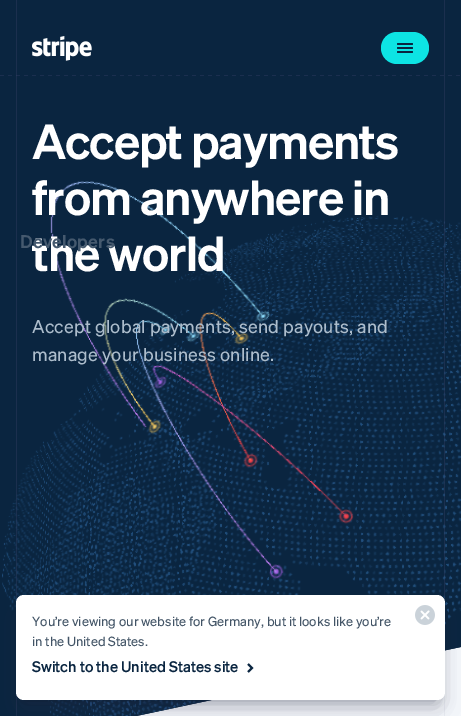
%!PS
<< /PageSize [461 716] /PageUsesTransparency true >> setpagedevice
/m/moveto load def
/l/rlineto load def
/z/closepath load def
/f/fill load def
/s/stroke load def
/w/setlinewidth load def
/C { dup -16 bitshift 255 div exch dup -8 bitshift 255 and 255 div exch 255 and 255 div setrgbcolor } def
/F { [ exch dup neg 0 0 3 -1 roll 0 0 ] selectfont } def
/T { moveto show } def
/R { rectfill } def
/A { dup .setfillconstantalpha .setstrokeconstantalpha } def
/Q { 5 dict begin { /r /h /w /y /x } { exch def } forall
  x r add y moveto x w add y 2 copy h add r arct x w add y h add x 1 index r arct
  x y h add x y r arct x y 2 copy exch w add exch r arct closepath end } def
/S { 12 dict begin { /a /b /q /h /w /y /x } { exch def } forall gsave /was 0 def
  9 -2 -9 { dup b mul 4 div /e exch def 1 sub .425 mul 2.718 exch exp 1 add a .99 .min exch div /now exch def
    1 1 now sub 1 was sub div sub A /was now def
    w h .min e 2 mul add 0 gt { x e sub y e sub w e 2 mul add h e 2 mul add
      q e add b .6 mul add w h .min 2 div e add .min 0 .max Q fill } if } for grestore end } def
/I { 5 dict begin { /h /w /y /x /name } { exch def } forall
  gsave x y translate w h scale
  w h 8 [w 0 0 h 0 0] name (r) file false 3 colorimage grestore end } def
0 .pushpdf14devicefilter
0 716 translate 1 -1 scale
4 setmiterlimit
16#FFFFFF C
0 0 461 716 R
16#F6F9FC C
0 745 m 461 -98 l 0 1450 l -461 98 l z f
0.06 A
16#424770 C
445 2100 m -1 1 l 0 -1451 l 1 0 l z f
1 A
16#0A2540 C
0 76 m 461 -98 l 0 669 l -461 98 l z f
16#1B2F4E C
16 73 m 1 -1 l 0 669 l -1 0 l z f
444 -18 m 1 -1 l 0 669 l -1 0 l z f
/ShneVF-Medium 48 F
16#FFFFFF C
32 159 m -1 0 (Accept payments) ashow
(1.rgb) 2 181 459 535 I
32 215 m -1 0 (from anywhere in) ashow
32 271 m -1 0 (the world) ashow
/ShneVF-Light 18 F
16#ADBDCC C
32 333 m .2 0 (Accept global payments, send payouts, and) ashow
32 361 m .2 0 (manage your business online.) ashow
16#0A2540 C
0 0 445 76 R
16#1B2F4E C
16 0 1 76 R
444 0 1 76 R
(2.rgb) 0 75 460 1 I
(3.rgb) 32 36 60 25 I
16#0DE4E4 C
381 32 48 32 16 Q f
16#0A2540 C
397 51 16 2 1 Q f
397 47 16 2 1 Q f
397 43 16 2 1 Q f
/ShneVF-Medium 18 F
16#45596E C
20 248 m .2 0 (Developers) ashow
16#000000 C
24 611 413 89 0 8 .3 S
16#32325D C
21 613 419 95 3 13.5 .25 S
16#FFFFFF C
16 595 429 105 8 Q f
/ShneVF-Light 13 F
16#425466 C
(You’re viewing our website for Germany, but it looks like you’re) 32 626 T
(in the United States.) 32 646 T
/ShneVF-Regular 15 F
16#0A2540 C
(Switch to the United States site) 32 672 T
2 w
248 664 m 4 4 l -4 4 l s
(4.rgb) 415 605 20 20 I
.poppdf14devicefilter showpage
